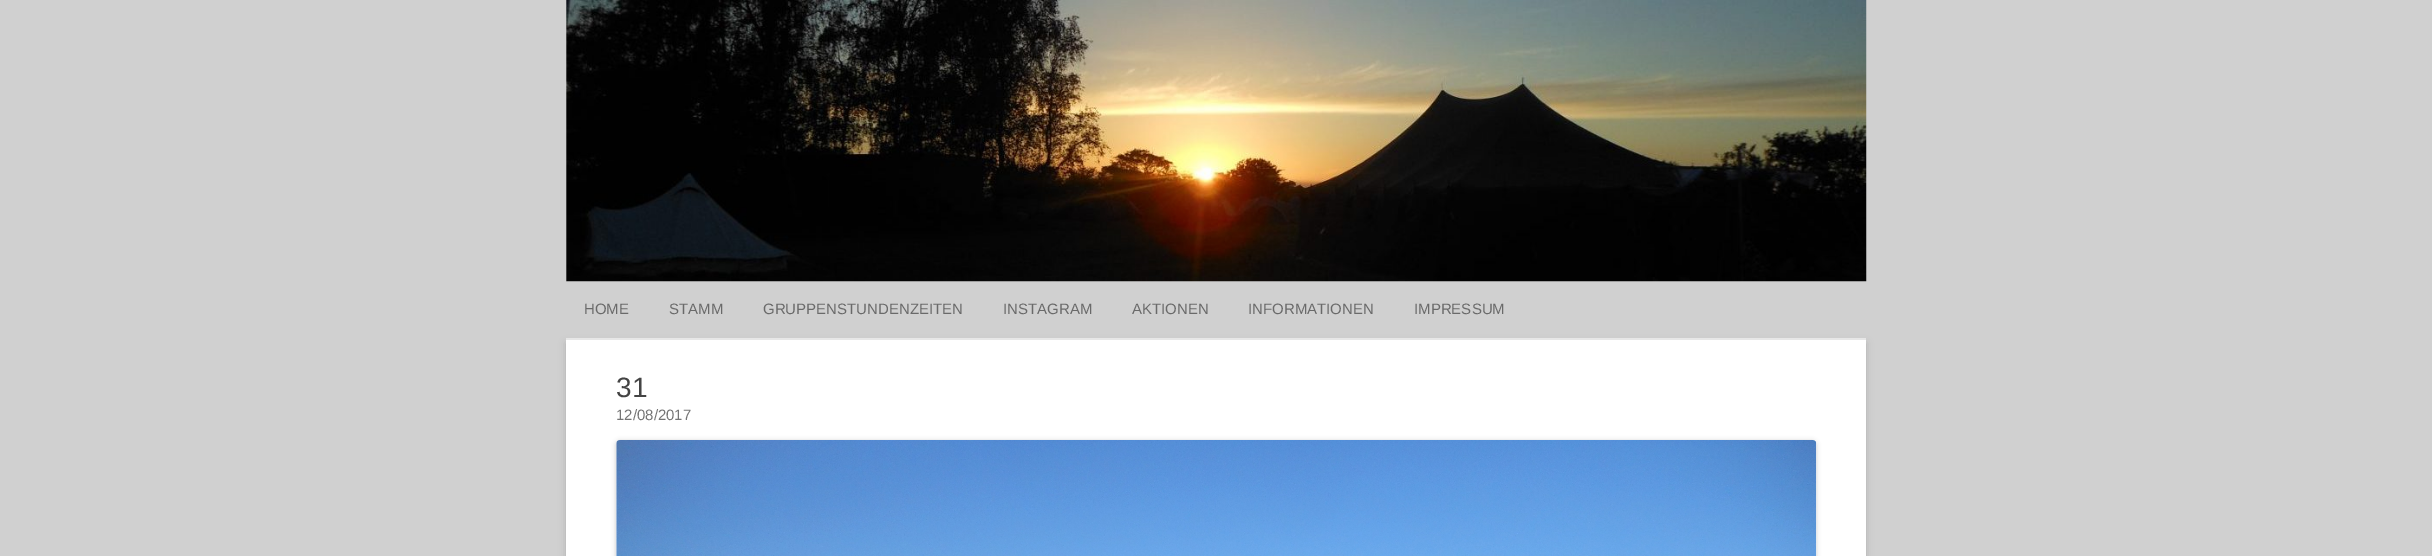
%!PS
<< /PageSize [2432 556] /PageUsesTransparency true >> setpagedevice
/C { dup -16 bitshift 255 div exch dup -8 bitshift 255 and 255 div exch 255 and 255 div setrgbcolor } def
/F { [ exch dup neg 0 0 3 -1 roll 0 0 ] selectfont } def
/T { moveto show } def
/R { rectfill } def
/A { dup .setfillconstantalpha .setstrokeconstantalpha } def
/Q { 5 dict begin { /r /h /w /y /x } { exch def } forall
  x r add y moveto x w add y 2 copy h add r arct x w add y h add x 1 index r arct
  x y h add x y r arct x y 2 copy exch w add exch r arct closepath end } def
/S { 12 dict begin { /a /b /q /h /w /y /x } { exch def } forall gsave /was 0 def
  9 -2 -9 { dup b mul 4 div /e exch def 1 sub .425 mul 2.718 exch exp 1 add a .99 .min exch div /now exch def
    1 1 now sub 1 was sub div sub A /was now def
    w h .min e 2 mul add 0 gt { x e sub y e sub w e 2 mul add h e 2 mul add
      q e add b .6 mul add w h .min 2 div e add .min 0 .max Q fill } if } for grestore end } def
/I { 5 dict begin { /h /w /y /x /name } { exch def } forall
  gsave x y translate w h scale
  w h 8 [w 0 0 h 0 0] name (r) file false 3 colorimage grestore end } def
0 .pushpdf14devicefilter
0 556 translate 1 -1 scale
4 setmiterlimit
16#D0D0D0 C
0 0 2432 556 R
(1.rgb) 566 0 1301 282 I
16#EDEDED C
566 338 1300 2 R
/LiberationSans-Regular 15 F
16#6A6A6A C
(HOME) 584 314 T
(STAMM) 669 314 T
(GRUPPENSTUNDENZEITEN) 763 314 T
(INSTAGRAM) 1003 314 T
(AKTIONEN) 1132 314 T
(INFORMATIONEN) 1248 314 T
(IMPRESSUM) 1414 314 T
16#646464 C
566 343 1300 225 0 4 .3 S
16#FFFFFF C
566 340 1300 216 R
/LiberationSans-Regular 28 F
16#444444 C
(31) 616 397 T
/LiberationSans-Regular 15 F
16#757575 C
(12/08/2017) 616 420 T
16#000000 C
616 441 1200 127 4 2.5 .2 S
(2.rgb) 616 440 1201 116 I
.poppdf14devicefilter showpage
